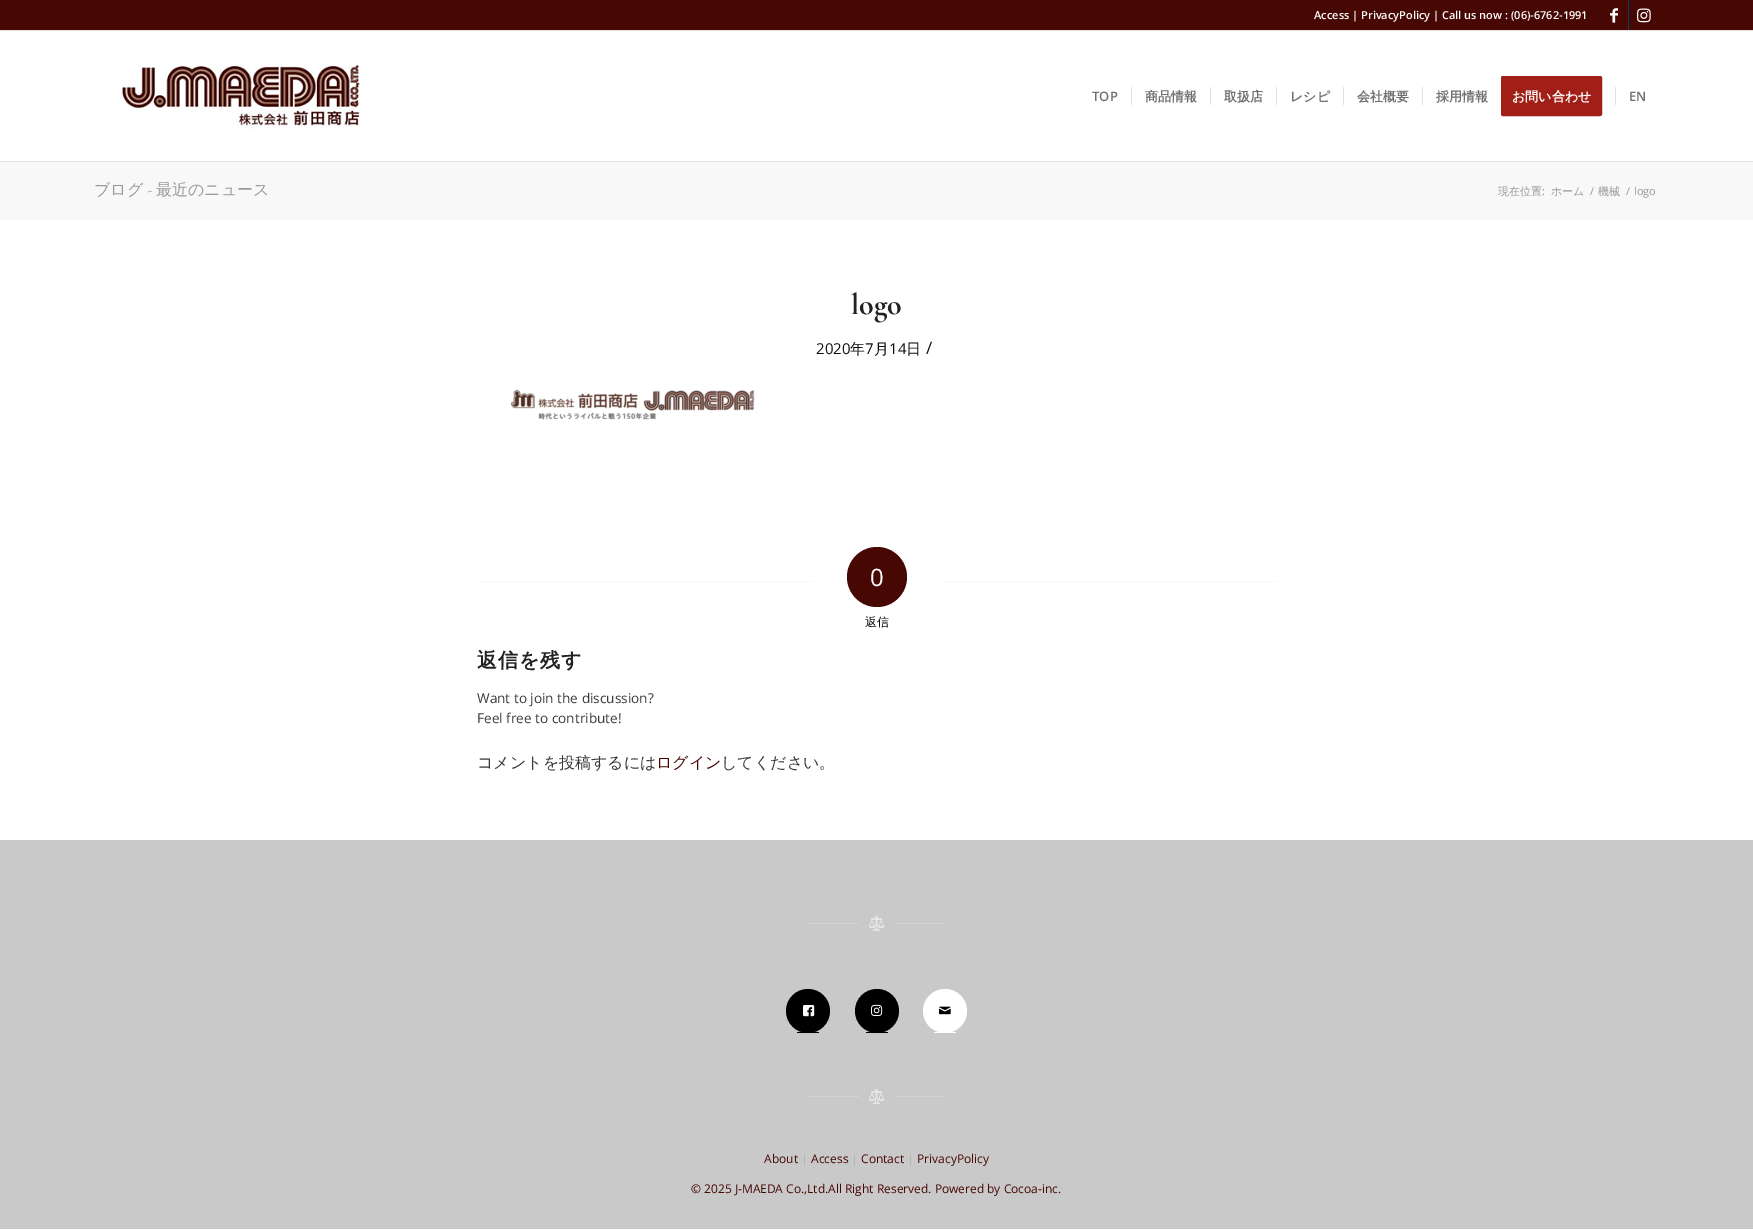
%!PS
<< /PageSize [1753 1230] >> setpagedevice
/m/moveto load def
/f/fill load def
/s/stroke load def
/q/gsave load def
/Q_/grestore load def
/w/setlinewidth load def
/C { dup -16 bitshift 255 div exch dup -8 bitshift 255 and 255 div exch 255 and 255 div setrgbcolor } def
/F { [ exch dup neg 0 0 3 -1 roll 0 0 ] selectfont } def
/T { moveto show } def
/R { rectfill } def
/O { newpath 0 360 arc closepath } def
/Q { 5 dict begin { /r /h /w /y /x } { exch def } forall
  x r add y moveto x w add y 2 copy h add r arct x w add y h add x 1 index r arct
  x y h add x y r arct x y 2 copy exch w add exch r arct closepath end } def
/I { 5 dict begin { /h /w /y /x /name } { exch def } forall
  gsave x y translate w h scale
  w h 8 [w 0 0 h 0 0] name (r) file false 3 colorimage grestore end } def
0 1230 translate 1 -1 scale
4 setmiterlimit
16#F8F8F8 C
0 0 1753 1230 R
16#470803 C
0 0 1753 30 R
16#E1E1E1 C
0 30 1753 1 R
/OpenSans-SemiBold 11 F
16#FFFFFF C
(Access | PrivacyPolicy | Call us now : \(06\)-6762-1991) 1314 19 T
16#073E63 C
1628 0 1 30 R
(1.rgb) 1610 8 8 15 I
(2.rgb) 1637 8 14 15 I
16#FFFFFF C
0 31 1753 130 R
16#E1E1E1 C
0 161 1753 1 R
(3.rgb) 121 61 240 72 I
/OpenSans-SemiBold 13 F
16#707070 C
(TOP) 1092 101 T
/WenQuanYiZenHei-Bold 13 F
(商品情報) 1145 101 T
16#E1E1E1 C
1131 87 1 18 R
16#707070 C
(取扱店) 1224 101 T
16#E1E1E1 C
1210 87 1 18 R
16#707070 C
(レシピ) 1290 101 T
16#E1E1E1 C
1276 87 1 18 R
16#707070 C
(会社概要) 1357 101 T
16#E1E1E1 C
1343 87 1 18 R
16#707070 C
(採用情報) 1436 101 T
16#E1E1E1 C
1422 87 1 18 R
16#A11F16 C
1502 77 99 38 1 Q q f Q_
2 w
s
16#FFFFFF C
(お問い合わせ) 1512 101 T
/OpenSans-SemiBold 13 F
16#707070 C
(EN) 1629 101 T
16#E1E1E1 C
1615 87 1 18 R
16#FFFFFF C
0 220 1753 619 R
/WenQuanYiZenHei-Medium 16 F
16#999999 C
(ブログ) 94 195 T
/CormorantGaramond-Regular 16 F
(-) 147 195 T
/WenQuanYiZenHei-Medium 16 F
(最近のニュース) 156 195 T
/WenQuanYiZenHei-Medium 11 F
(現在位置) 1498 195 T
/OpenSans-Regular 11 F
(:) 1542 195 T
/WenQuanYiZenHei-Medium 11 F
(ホーム) 1551 195 T
/OpenSans-Regular 11 F
(/) 1590 195 T
/WenQuanYiZenHei-Medium 11 F
(機械) 1598 195 T
/OpenSans-Regular 11 F
(/) 1626 195 T
(logo) 1634 195 T
/CormorantGaramond-Bold 30 F
16#222222 C
(logo) 851 314 T
/OpenSans-Regular 15 F
16#0F0F0F C
(2020) 816 354 T
/WenQuanYiZenHei-Medium 15 F
(年) 850 354 T
/OpenSans-Regular 15 F
(7) 865 354 T
/WenQuanYiZenHei-Medium 15 F
(月) 874 354 T
/OpenSans-Regular 15 F
(14) 889 354 T
/WenQuanYiZenHei-Medium 15 F
(日) 906 354 T
/OpenSans-Regular 17 F
(/) 926 354 T
(4.rgb) 510 389 245 31 I
16#F8F8F8 C
477 581 336 1 R
16#470803 C
877 577 30 O f
/OpenSans-Regular 24 F
16#FFFFFF C
(0) 870 586 T
16#F8F8F8 C
941 581 336 1 R
/WenQuanYiZenHei-Medium 12 F
16#0F0F0F C
(返信) 865 626 T
/WenQuanYiZenHei-Bold 20 F
16#222222 C
477 667 m 1 0 (返信を残す) ashow
/OpenSans-Regular 13.6 F
16#383838 C
(Want to join the discussion?) 477 703 T
(Feel free to contribute!) 477 723 T
/WenQuanYiZenHei-Medium 16 F
(コメントを投稿するには) 477 768 T
16#470803 C
(ログイン) 656 768 T
16#383838 C
(してください。) 721 768 T
16#FCFCFC C
0 839 1753 1 R
16#C9C9C9 C
0 840 1753 389 R
16#D3D3D3 C
809 923 50 1 R
(5.rgb) 869 915 15 16 I
894 923 50 1 R
16#000000 C
808 1011 22 O f
797 1032 22 1 R
(6.rgb) 803 1005 12 12 I
877 1011 22 O f
866 1032 22 1 R
(7.rgb) 871 1004 12 12 I
16#FFFFFF C
945 1011 22 O f
934 1032 22 1 R
(8.rgb) 939 1006 12 9 I
16#D3D3D3 C
809 1096 50 1 R
(5.rgb) 869 1088 15 16 I
894 1096 50 1 R
/OpenSans-Regular 12 F
16#470803 C
(About) 764 1163 T
16#B0B0B0 C
(|) 801 1163 T
16#470803 C
(Access) 811 1163 T
16#B0B0B0 C
(|) 851 1163 T
16#470803 C
(Contact) 861 1163 T
16#B0B0B0 C
(|) 907 1163 T
16#470803 C
(PrivacyPolicy) 917 1163 T
(© 2025 J-MAEDA Co.,Ltd.All Right Reserved. Powered by Cocoa-inc.) 691 1193 T
showpage
